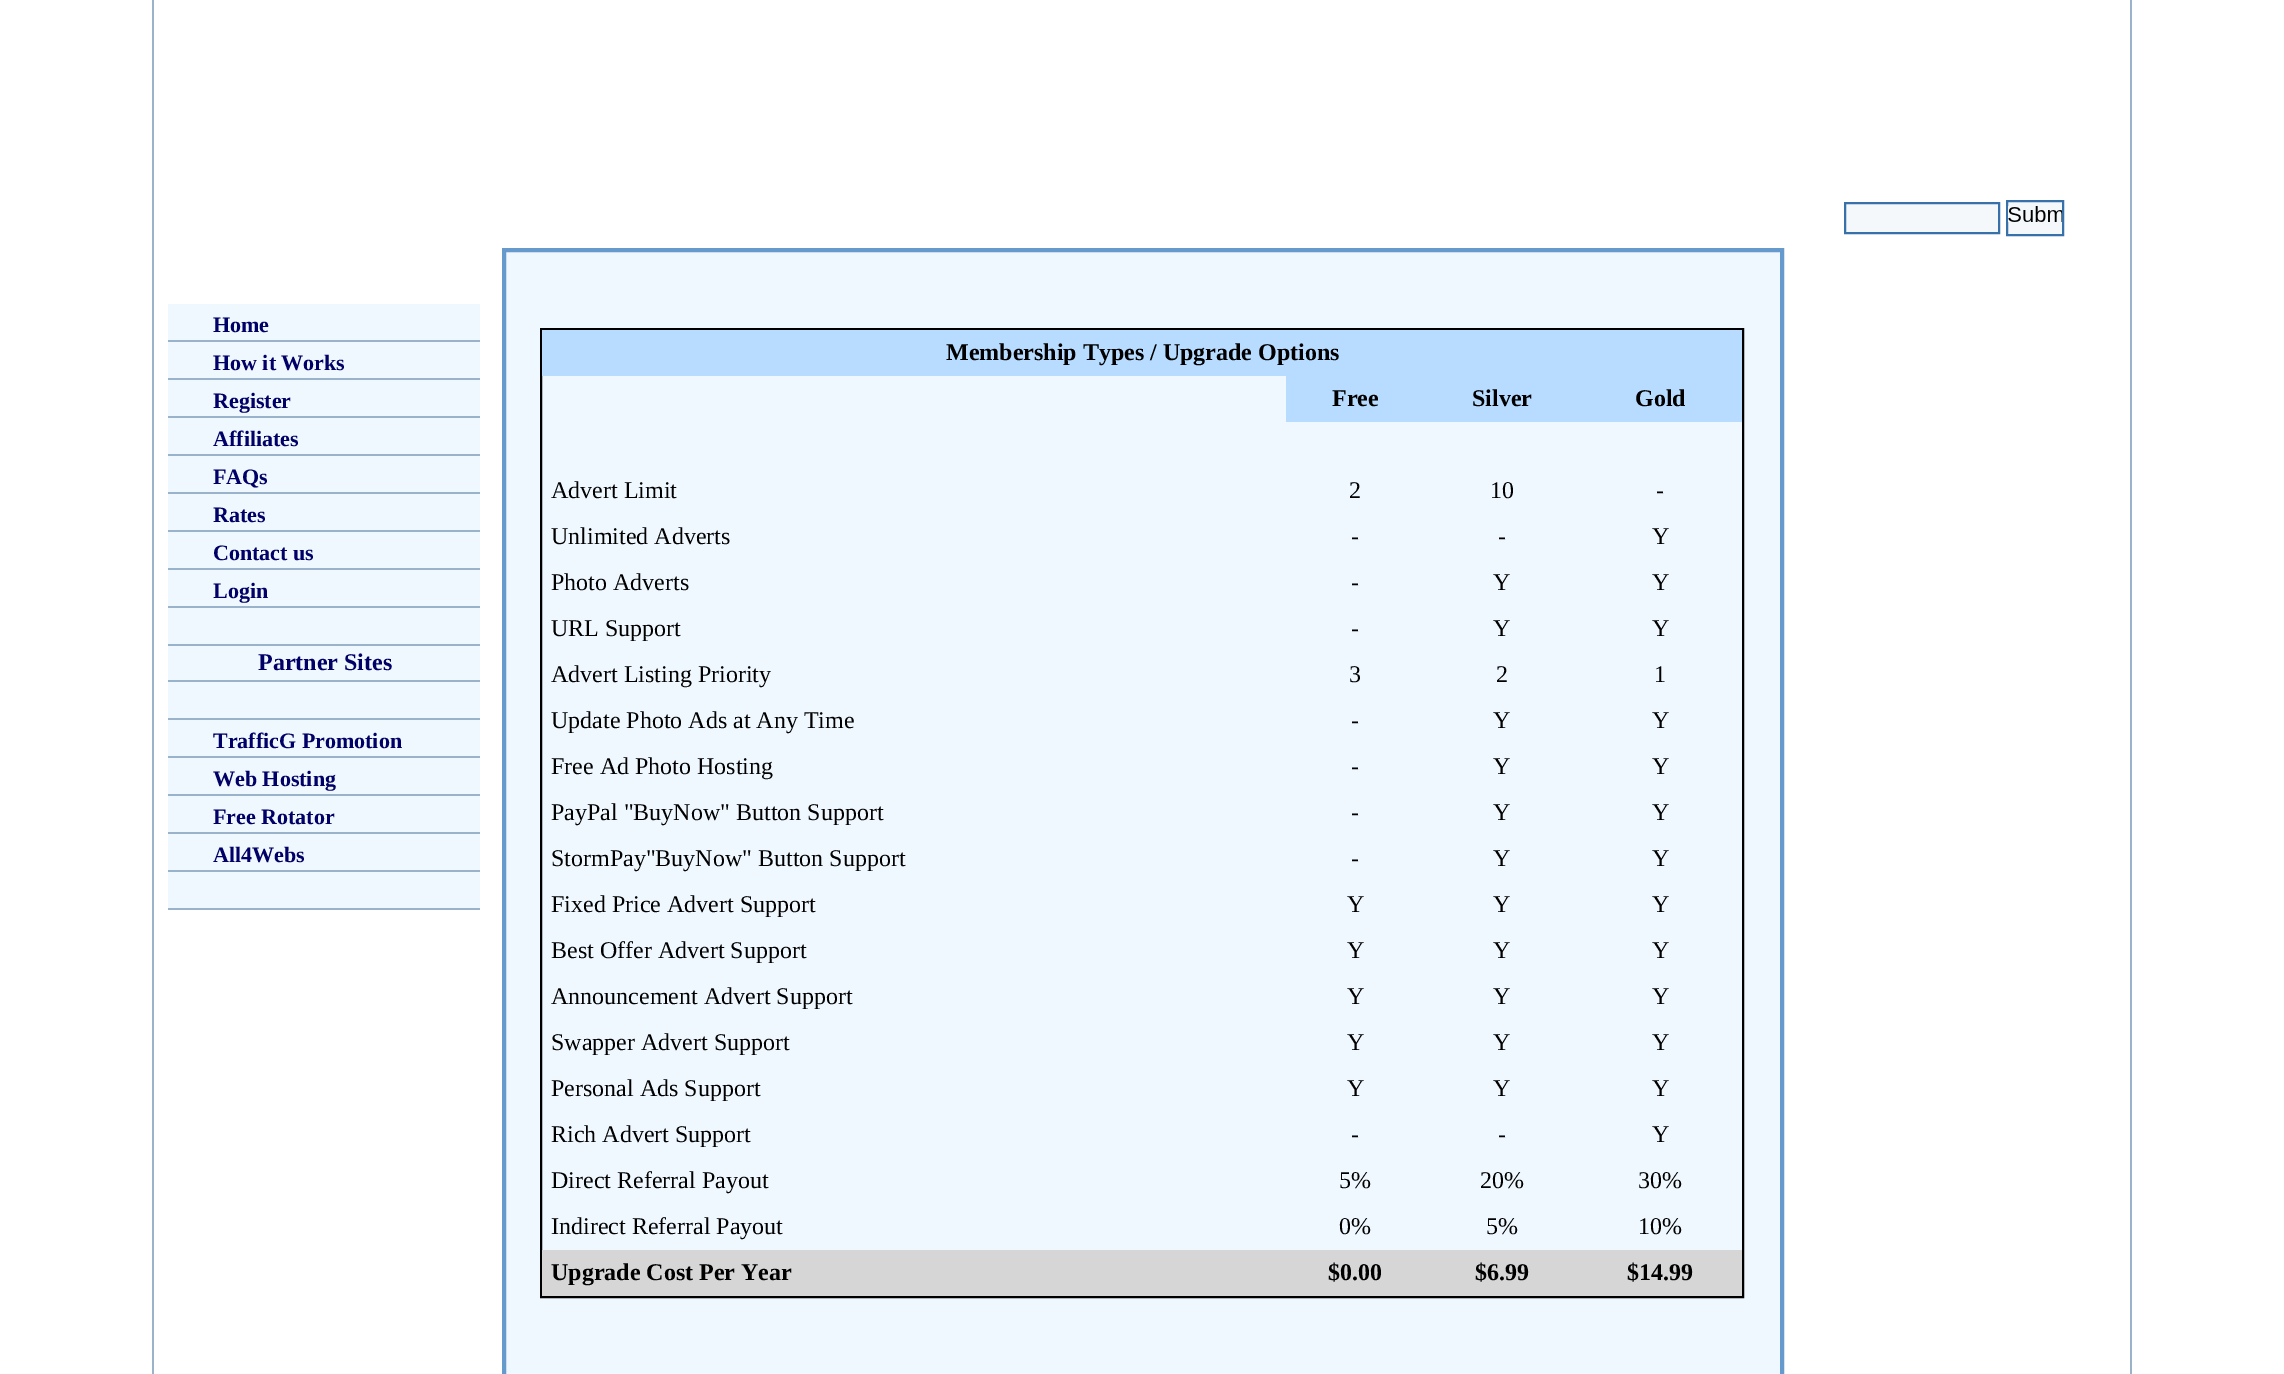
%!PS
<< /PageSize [2284 1374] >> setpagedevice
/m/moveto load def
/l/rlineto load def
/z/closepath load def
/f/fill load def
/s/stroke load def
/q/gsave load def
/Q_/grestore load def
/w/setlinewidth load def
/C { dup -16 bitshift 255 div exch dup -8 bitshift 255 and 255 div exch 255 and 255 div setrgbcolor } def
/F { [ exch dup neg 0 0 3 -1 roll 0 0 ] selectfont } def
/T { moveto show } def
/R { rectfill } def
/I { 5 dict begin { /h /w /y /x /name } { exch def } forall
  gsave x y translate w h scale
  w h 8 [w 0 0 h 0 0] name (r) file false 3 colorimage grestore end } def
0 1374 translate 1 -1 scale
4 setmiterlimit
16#FFFFFF C
0 0 2284 1374 R
16#9AB3CA C
2130 0 2 1374 R
152 0 2 1374 R
16#F4F8FB C
1845 203 m 154 0 l 0 30 l -154 0 l z q f Q_
16#3871A9 C
2 w
s
16#F4F8FB C
2007 201 m 56 0 l 0 34 l -56 0 l z q f Q_
16#3871A9 C
s
(1.rgb) 2008 206 54 16 I
16#F0F8FF C
168 304 312 36 R
16#9AB3CA C
168 340 312 2 R
/LiberationSerif-Bold 22 F
16#000066 C
(Home) 213 332 T
16#F0F8FF C
168 342 312 36 R
16#9AB3CA C
168 378 312 2 R
16#000066 C
(How it Works) 213 370 T
16#F0F8FF C
168 380 312 36 R
16#9AB3CA C
168 416 312 2 R
16#000066 C
(Register) 213 408 T
16#F0F8FF C
168 418 312 36 R
16#9AB3CA C
168 454 312 2 R
16#000066 C
(Affiliates) 213 446 T
16#F0F8FF C
168 456 312 36 R
16#9AB3CA C
168 492 312 2 R
16#000066 C
(FAQs) 213 484 T
16#F0F8FF C
168 494 312 36 R
16#9AB3CA C
168 530 312 2 R
16#000066 C
(Rates) 213 522 T
16#F0F8FF C
168 532 312 36 R
16#9AB3CA C
168 568 312 2 R
16#000066 C
(Contact us) 213 560 T
16#F0F8FF C
168 570 312 36 R
16#9AB3CA C
168 606 312 2 R
16#000066 C
(Login) 213 598 T
16#F0F8FF C
168 608 312 36 R
16#9AB3CA C
168 644 312 2 R
16#F0F8FF C
168 646 312 34 R
16#9AB3CA C
168 680 312 2 R
/LiberationSerif-Bold 24 F
16#000066 C
(Partner Sites) 258 670 T
16#F0F8FF C
168 682 312 36 R
16#9AB3CA C
168 718 312 2 R
16#F0F8FF C
168 720 312 36 R
16#9AB3CA C
168 756 312 2 R
/LiberationSerif-Bold 22 F
16#000066 C
(TrafficG Promotion) 213 748 T
16#F0F8FF C
168 758 312 36 R
16#9AB3CA C
168 794 312 2 R
16#000066 C
(Web Hosting) 213 786 T
16#F0F8FF C
168 796 312 36 R
16#9AB3CA C
168 832 312 2 R
16#000066 C
(Free Rotator) 213 824 T
16#F0F8FF C
168 834 312 36 R
16#9AB3CA C
168 870 312 2 R
16#000066 C
(All4Webs) 213 862 T
16#F0F8FF C
168 872 312 36 R
16#9AB3CA C
168 908 312 2 R
16#F0F8FF C
504 250 m 1278 0 l 0 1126 l -1278 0 l z q f Q_
16#6699CC C
4 w
s
16#000000 C
2 w
541 329 1202 968 rectstroke
16#B7DCFF C
542 330 1200 46 R
/LiberationSerif-Bold 24 F
16#000000 C
(Membership Types / Upgrade Options) 946 360 T
16#B7DCFF C
1286 376 456 46 R
16#000000 C
(Free) 1332 406 T
(Silver) 1472 406 T
(Gold) 1635 406 T
/LiberationSerif-Regular 24 F
(Advert Limit) 551 498 T
(2) 1349 498 T
(10) 1490 498 T
(-) 1656 498 T
(Unlimited Adverts) 551 544 T
(-) 1351 544 T
(-) 1498 544 T
(Y) 1652 544 T
(Photo Adverts) 551 590 T
(-) 1351 590 T
(Y) 1493 590 T
(Y) 1652 590 T
(URL Support) 551 636 T
(-) 1351 636 T
(Y) 1493 636 T
(Y) 1652 636 T
(Advert Listing Priority) 551 682 T
(3) 1349 682 T
(2) 1496 682 T
(1) 1654 682 T
(Update Photo Ads at Any Time) 551 728 T
(-) 1351 728 T
(Y) 1493 728 T
(Y) 1652 728 T
(Free Ad Photo Hosting) 551 774 T
(-) 1351 774 T
(Y) 1493 774 T
(Y) 1652 774 T
(PayPal "BuyNow" Button Support) 551 820 T
(-) 1351 820 T
(Y) 1493 820 T
(Y) 1652 820 T
(StormPay"BuyNow" Button Support) 551 866 T
(-) 1351 866 T
(Y) 1493 866 T
(Y) 1652 866 T
(Fixed Price Advert Support) 551 912 T
(Y) 1347 912 T
(Y) 1493 912 T
(Y) 1652 912 T
(Best Offer Advert Support) 551 958 T
(Y) 1347 958 T
(Y) 1493 958 T
(Y) 1652 958 T
(Announcement Advert Support) 551 1004 T
(Y) 1347 1004 T
(Y) 1493 1004 T
(Y) 1652 1004 T
(Swapper Advert Support) 551 1050 T
(Y) 1347 1050 T
(Y) 1493 1050 T
(Y) 1652 1050 T
(Personal Ads Support) 551 1096 T
(Y) 1347 1096 T
(Y) 1493 1096 T
(Y) 1652 1096 T
(Rich Advert Support) 551 1142 T
(-) 1351 1142 T
(-) 1498 1142 T
(Y) 1652 1142 T
(Direct Referral Payout) 551 1188 T
(5%) 1339 1188 T
(20%) 1480 1188 T
(30%) 1638 1188 T
(Indirect Referral Payout) 551 1234 T
(0%) 1339 1234 T
(5%) 1486 1234 T
(10%) 1638 1234 T
16#D6D6D6 C
542 1250 1200 46 R
/LiberationSerif-Bold 24 F
16#000000 C
(Upgrade Cost Per Year) 551 1280 T
($0.00) 1328 1280 T
($6.99) 1475 1280 T
($14.99) 1627 1280 T
showpage
